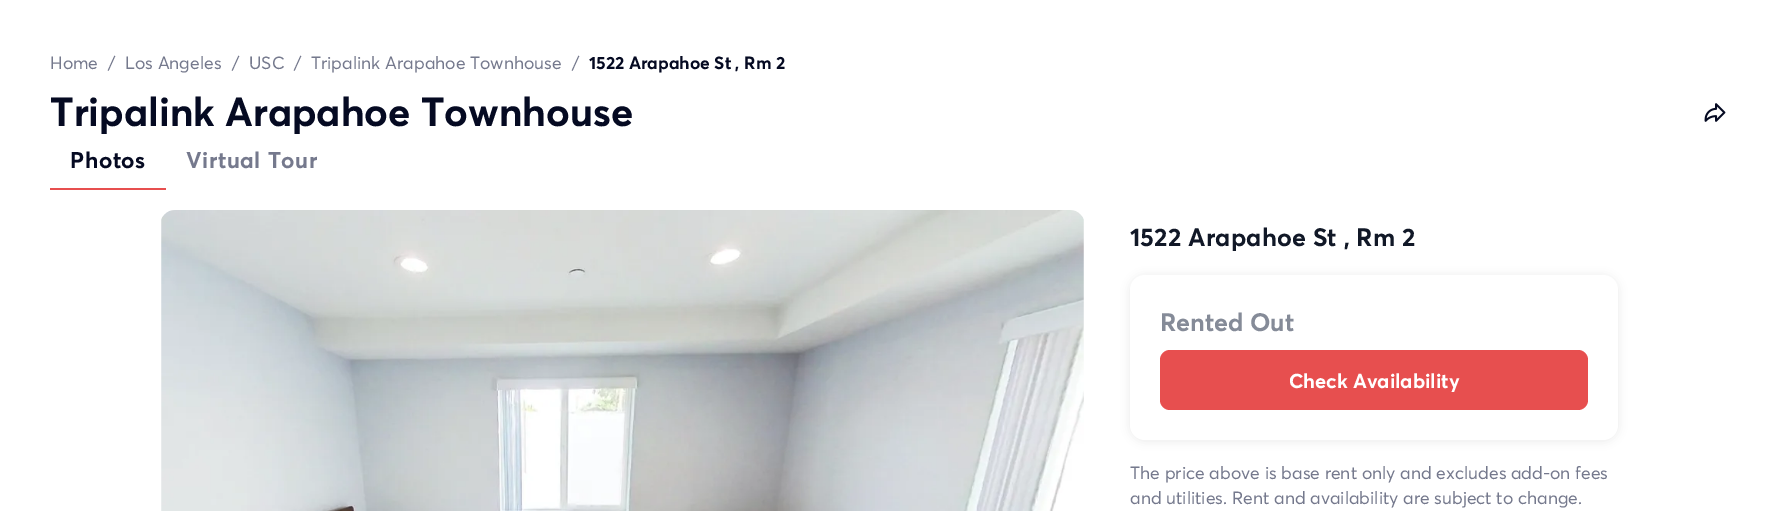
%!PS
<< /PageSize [1777 511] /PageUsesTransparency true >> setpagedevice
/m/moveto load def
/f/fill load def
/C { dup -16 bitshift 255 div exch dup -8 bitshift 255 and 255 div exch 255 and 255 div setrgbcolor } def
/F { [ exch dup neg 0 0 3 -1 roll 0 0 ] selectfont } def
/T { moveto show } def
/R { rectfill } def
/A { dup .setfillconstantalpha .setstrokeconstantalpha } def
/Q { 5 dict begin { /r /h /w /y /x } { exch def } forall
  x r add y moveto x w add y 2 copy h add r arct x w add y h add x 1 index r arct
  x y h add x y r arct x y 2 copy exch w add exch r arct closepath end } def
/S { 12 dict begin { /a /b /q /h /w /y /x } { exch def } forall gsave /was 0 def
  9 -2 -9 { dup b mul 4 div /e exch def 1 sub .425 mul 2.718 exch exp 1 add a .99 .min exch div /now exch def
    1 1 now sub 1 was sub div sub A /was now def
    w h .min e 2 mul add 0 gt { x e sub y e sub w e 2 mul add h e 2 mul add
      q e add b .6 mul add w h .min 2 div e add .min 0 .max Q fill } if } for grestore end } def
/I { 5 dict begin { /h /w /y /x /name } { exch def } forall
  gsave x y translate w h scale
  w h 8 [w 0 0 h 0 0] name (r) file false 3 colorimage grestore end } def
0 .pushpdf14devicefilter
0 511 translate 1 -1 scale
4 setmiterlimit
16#FFFFFF C
0 0 1777 511 R
/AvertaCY-Regular 17.5 F
16#75798D C
(Home) 50 69 T
(/) 108 69 T
(Los Angeles) 125 69 T
(/) 232 69 T
(USC) 249 69 T
(/) 294 69 T
(Tripalink Arapahoe Townhouse) 311 69 T
(/) 572 69 T
/AvertaCY-Bold 17.5 F
16#050A22 C
(1522 Arapahoe St , Rm 2) 589 69 T
/AvertaCY-Bold 40 F
(Tripalink Arapahoe Townhouse) 50 126 T
(1.rgb) 1704 103 22 19 I
/AvertaCY-Bold 22.5 F
70 168 m .6 0 (Photos) ashow
16#75798D C
186 168 m .6 0 (Virtual Tour) ashow
16#E74F4F C
50 188 116 2 R
(2.rgb) 161 210 923 301 I
/AvertaCY-Bold 25 F
16#111827 C
1130 246 m .25 0 (1522 Arapahoe St , Rm 2) ashow
16#242A2E C
1130 276 488 165 15 4.5 .1 S
16#FFFFFF C
1130 275 488 165 15 Q f
16#858B98 C
(Rented Out) 1160 331 T
16#E74F4F C
1160 350 428 60 10 Q f
/AvertaCY-Bold 20 F
16#FFFFFF C
(Check Availability) 1289 388 T
/AvertaCY-Regular 17.5 F
16#75798D C
(The price above is base rent only and excludes add-on fees) 1130 479 T
(and utilities. Rent and availability are subject to change.) 1130 504 T
.poppdf14devicefilter showpage
